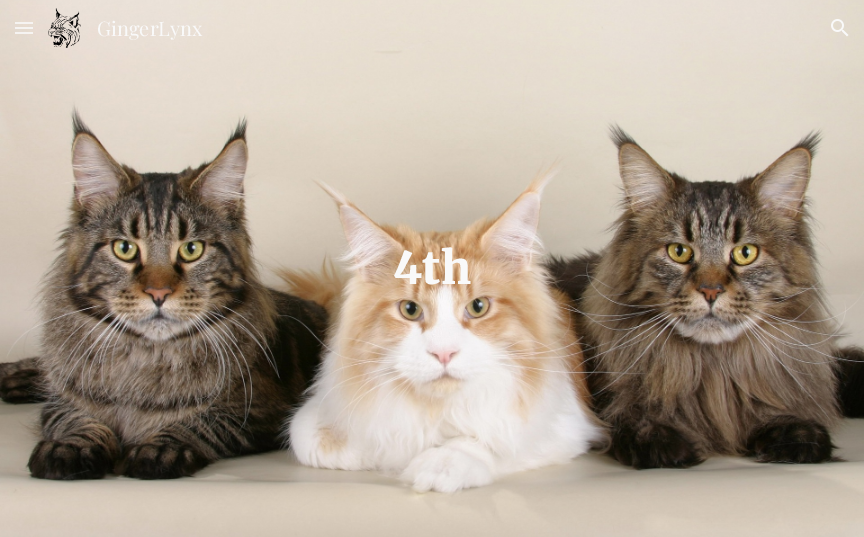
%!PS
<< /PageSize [864 537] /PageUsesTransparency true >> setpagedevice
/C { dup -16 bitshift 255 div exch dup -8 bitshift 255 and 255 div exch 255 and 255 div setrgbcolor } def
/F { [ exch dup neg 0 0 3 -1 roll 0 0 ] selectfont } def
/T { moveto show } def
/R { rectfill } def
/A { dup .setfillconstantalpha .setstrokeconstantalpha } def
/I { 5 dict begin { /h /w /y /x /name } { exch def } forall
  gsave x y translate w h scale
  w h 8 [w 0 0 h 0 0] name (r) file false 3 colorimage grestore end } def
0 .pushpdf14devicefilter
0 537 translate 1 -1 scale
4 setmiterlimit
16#FFFFFF C
0 0 864 537 R
(3.rgb) 0 0 864 537 I
0.82 A
16#F9F9F9 C
15 22 18 2 R
15 27 18 2 R
15 32 18 2 R
1 A
(1.rgb) 48 8 33 40 I
/PlayfairDisplay-Regular 20 F
(GingerLynx) 97 36 T
(2.rgb) 831 19 18 18 I
/Merriweather-Black 45 F
(4th) 393 284 T
.poppdf14devicefilter showpage
